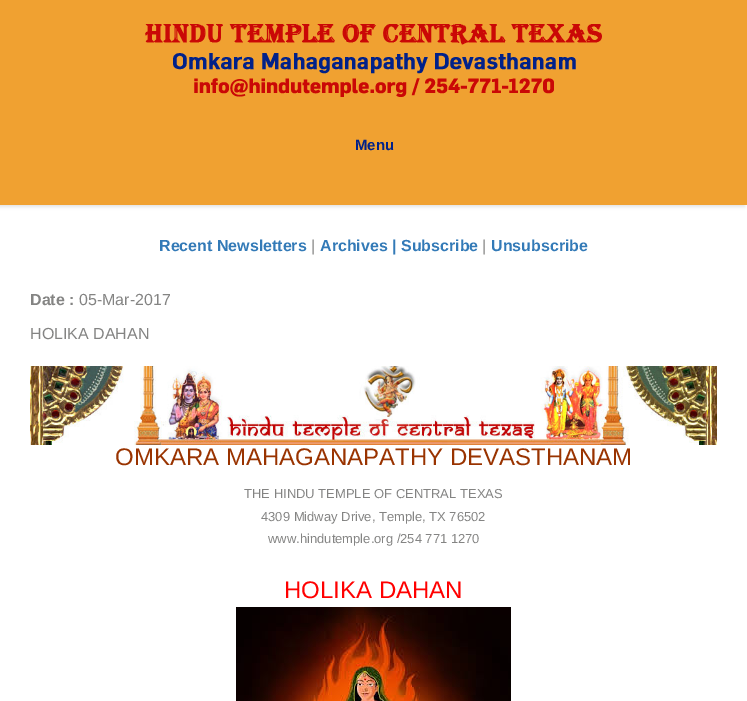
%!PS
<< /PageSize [747 701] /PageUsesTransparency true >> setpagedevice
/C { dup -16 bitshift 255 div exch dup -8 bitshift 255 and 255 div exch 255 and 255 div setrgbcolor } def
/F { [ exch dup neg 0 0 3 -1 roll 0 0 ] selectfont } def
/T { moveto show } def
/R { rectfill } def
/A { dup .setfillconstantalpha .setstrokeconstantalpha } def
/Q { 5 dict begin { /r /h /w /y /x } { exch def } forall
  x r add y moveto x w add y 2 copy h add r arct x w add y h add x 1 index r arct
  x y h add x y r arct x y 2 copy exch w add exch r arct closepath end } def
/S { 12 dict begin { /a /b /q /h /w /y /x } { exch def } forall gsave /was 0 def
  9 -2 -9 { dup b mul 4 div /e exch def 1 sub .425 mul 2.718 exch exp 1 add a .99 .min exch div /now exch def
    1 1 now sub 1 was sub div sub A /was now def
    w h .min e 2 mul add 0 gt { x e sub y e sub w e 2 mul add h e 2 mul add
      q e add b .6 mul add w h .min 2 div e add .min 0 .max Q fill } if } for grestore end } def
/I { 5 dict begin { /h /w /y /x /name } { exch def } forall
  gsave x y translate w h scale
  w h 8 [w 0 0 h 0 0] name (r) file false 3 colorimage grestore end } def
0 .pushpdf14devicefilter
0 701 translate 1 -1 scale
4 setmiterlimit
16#FFFFFF C
0 0 747 701 R
16#000000 C
-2 2 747 205 0 1.5 .1 S
16#F0A131 C
0 0 747 205 R
(1.rgb) 145 24 457 73 I
/LiberationSans-Bold 15 F
16#012189 C
(Menu) 355 150 T
/LiberationSans-Bold 16 F
16#337AB7 C
(Recent Newsletters) 159 251 T
/LiberationSans-Regular 16 F
16#848483 C
(|) 311 251 T
/LiberationSans-Bold 16 F
16#337AB7 C
(Archives | Subscribe) 320 251 T
/LiberationSans-Regular 16 F
16#848483 C
(|) 482 251 T
/LiberationSans-Bold 16 F
16#337AB7 C
(Unsubscribe) 491 251 T
16#848483 C
(Date :) 30 305 T
/LiberationSans-Regular 16 F
(05-Mar-2017) 79 305 T
(HOLIKA DAHAN) 30 339 T
(2.rgb) 30 366 687 79 I
/LiberationSans-Regular 24 F
16#993300 C
(OMKARA MAHAGANAPATHY DEVASTHANAM) 115 465 T
/LiberationSans-Regular 13 F
16#848483 C
(THE HINDU TEMPLE OF CENTRAL TEXAS) 244 498 T
(4309 Midway Drive, Temple, TX 76502) 261 521 T
(www.hindutemple.org /254 771 1270) 268 543 T
/LiberationSans-Regular 24 F
16#FF0000 C
(HOLIKA DAHAN) 284 598 T
(3.rgb) 236 607 275 94 I
.poppdf14devicefilter showpage
